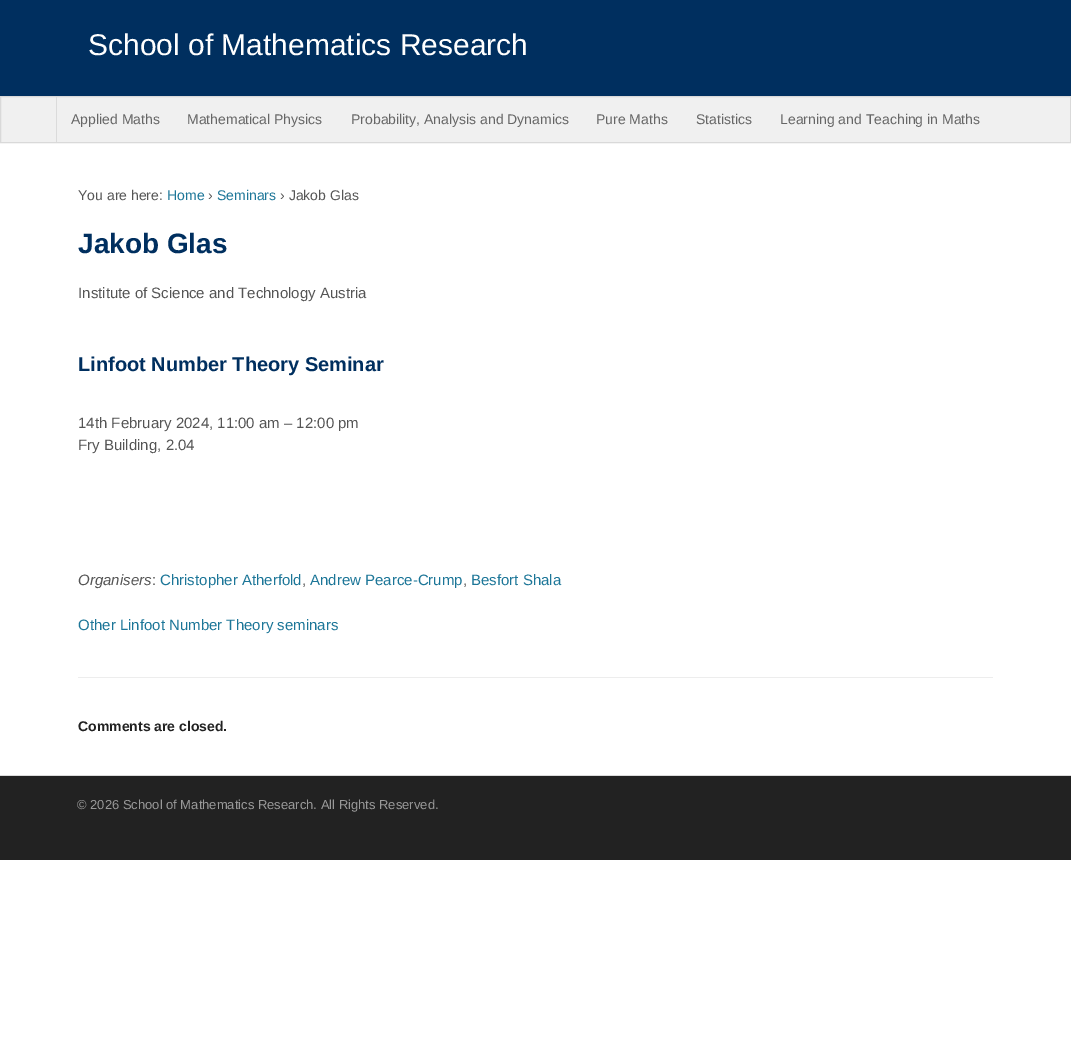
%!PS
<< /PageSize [1071 1056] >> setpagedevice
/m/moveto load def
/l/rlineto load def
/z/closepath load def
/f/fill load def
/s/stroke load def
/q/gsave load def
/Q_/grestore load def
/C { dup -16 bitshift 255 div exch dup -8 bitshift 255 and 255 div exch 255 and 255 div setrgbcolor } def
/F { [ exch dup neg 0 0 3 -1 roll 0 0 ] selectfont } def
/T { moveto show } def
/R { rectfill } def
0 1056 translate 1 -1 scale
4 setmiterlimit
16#FFFFFF C
0 0 1071 1056 R
16#002F5F C
0 0 1071 96 R
/LiberationSans-Regular 30 F
16#FFFFFF C
(School of Mathematics Research) 88 55 T
16#F0F0F0 C
.5 96.5 m 1070 0 l 0 46 l -1070 0 l z q f Q_
16#D9D9D9 C
s
16#DBDBDB C
56 97 1 45 R
/LiberationSans-Regular 14 F
16#666666 C
(Applied Maths) 71 124 T
(Mathematical Physics) 187 124 T
(Probability, Analysis and Dynamics) 351 124 T
(Pure Maths) 596 124 T
(Statistics) 696 124 T
(Learning and Teaching in Maths) 780 124 T
16#555555 C
(You are here:) 78 200 T
16#1C7698 C
(Home) 167 200 T
16#555555 C
(›) 208 200 T
16#1C7698 C
(Seminars) 217 200 T
16#555555 C
(› Jakob Glas) 280 200 T
/LiberationSans-Bold 28 F
16#002F5F C
(Jakob Glas) 78 253 T
/LiberationSans-Regular 15 F
16#555555 C
(Institute of Science and Technology Austria) 78 298 T
/LiberationSans-Bold 20 F
16#002F5F C
(Linfoot Number Theory Seminar) 78 371 T
/LiberationSans-Regular 15 F
16#555555 C
(14th February 2024, 11:00 am – 12:00 pm) 78 428 T
(Fry Building, 2.04) 78 450 T
/LiberationSans-Italic 15 F
(Organisers) 78 585 T
/LiberationSans-Regular 15 F
(:) 152 585 T
16#1C7698 C
(Christopher Atherfold) 160 585 T
16#555555 C
(,) 302 585 T
16#1C7698 C
(Andrew Pearce-Crump) 310 585 T
16#555555 C
(,) 463 585 T
16#1C7698 C
(Besfort Shala) 471 585 T
(Other Linfoot Number Theory seminars) 78 630 T
16#EDEDED C
78 677 915 1 R
/LiberationSans-Bold 14 F
16#222222 C
(Comments are closed.) 78 731 T
0 776 1071 84 R
16#DBDBDB C
0 775 1071 1 R
/LiberationSans-Regular 13 F
16#999999 C
(© 2026 School of Mathematics Research. All Rights Reserved.) 77 809 T
showpage
